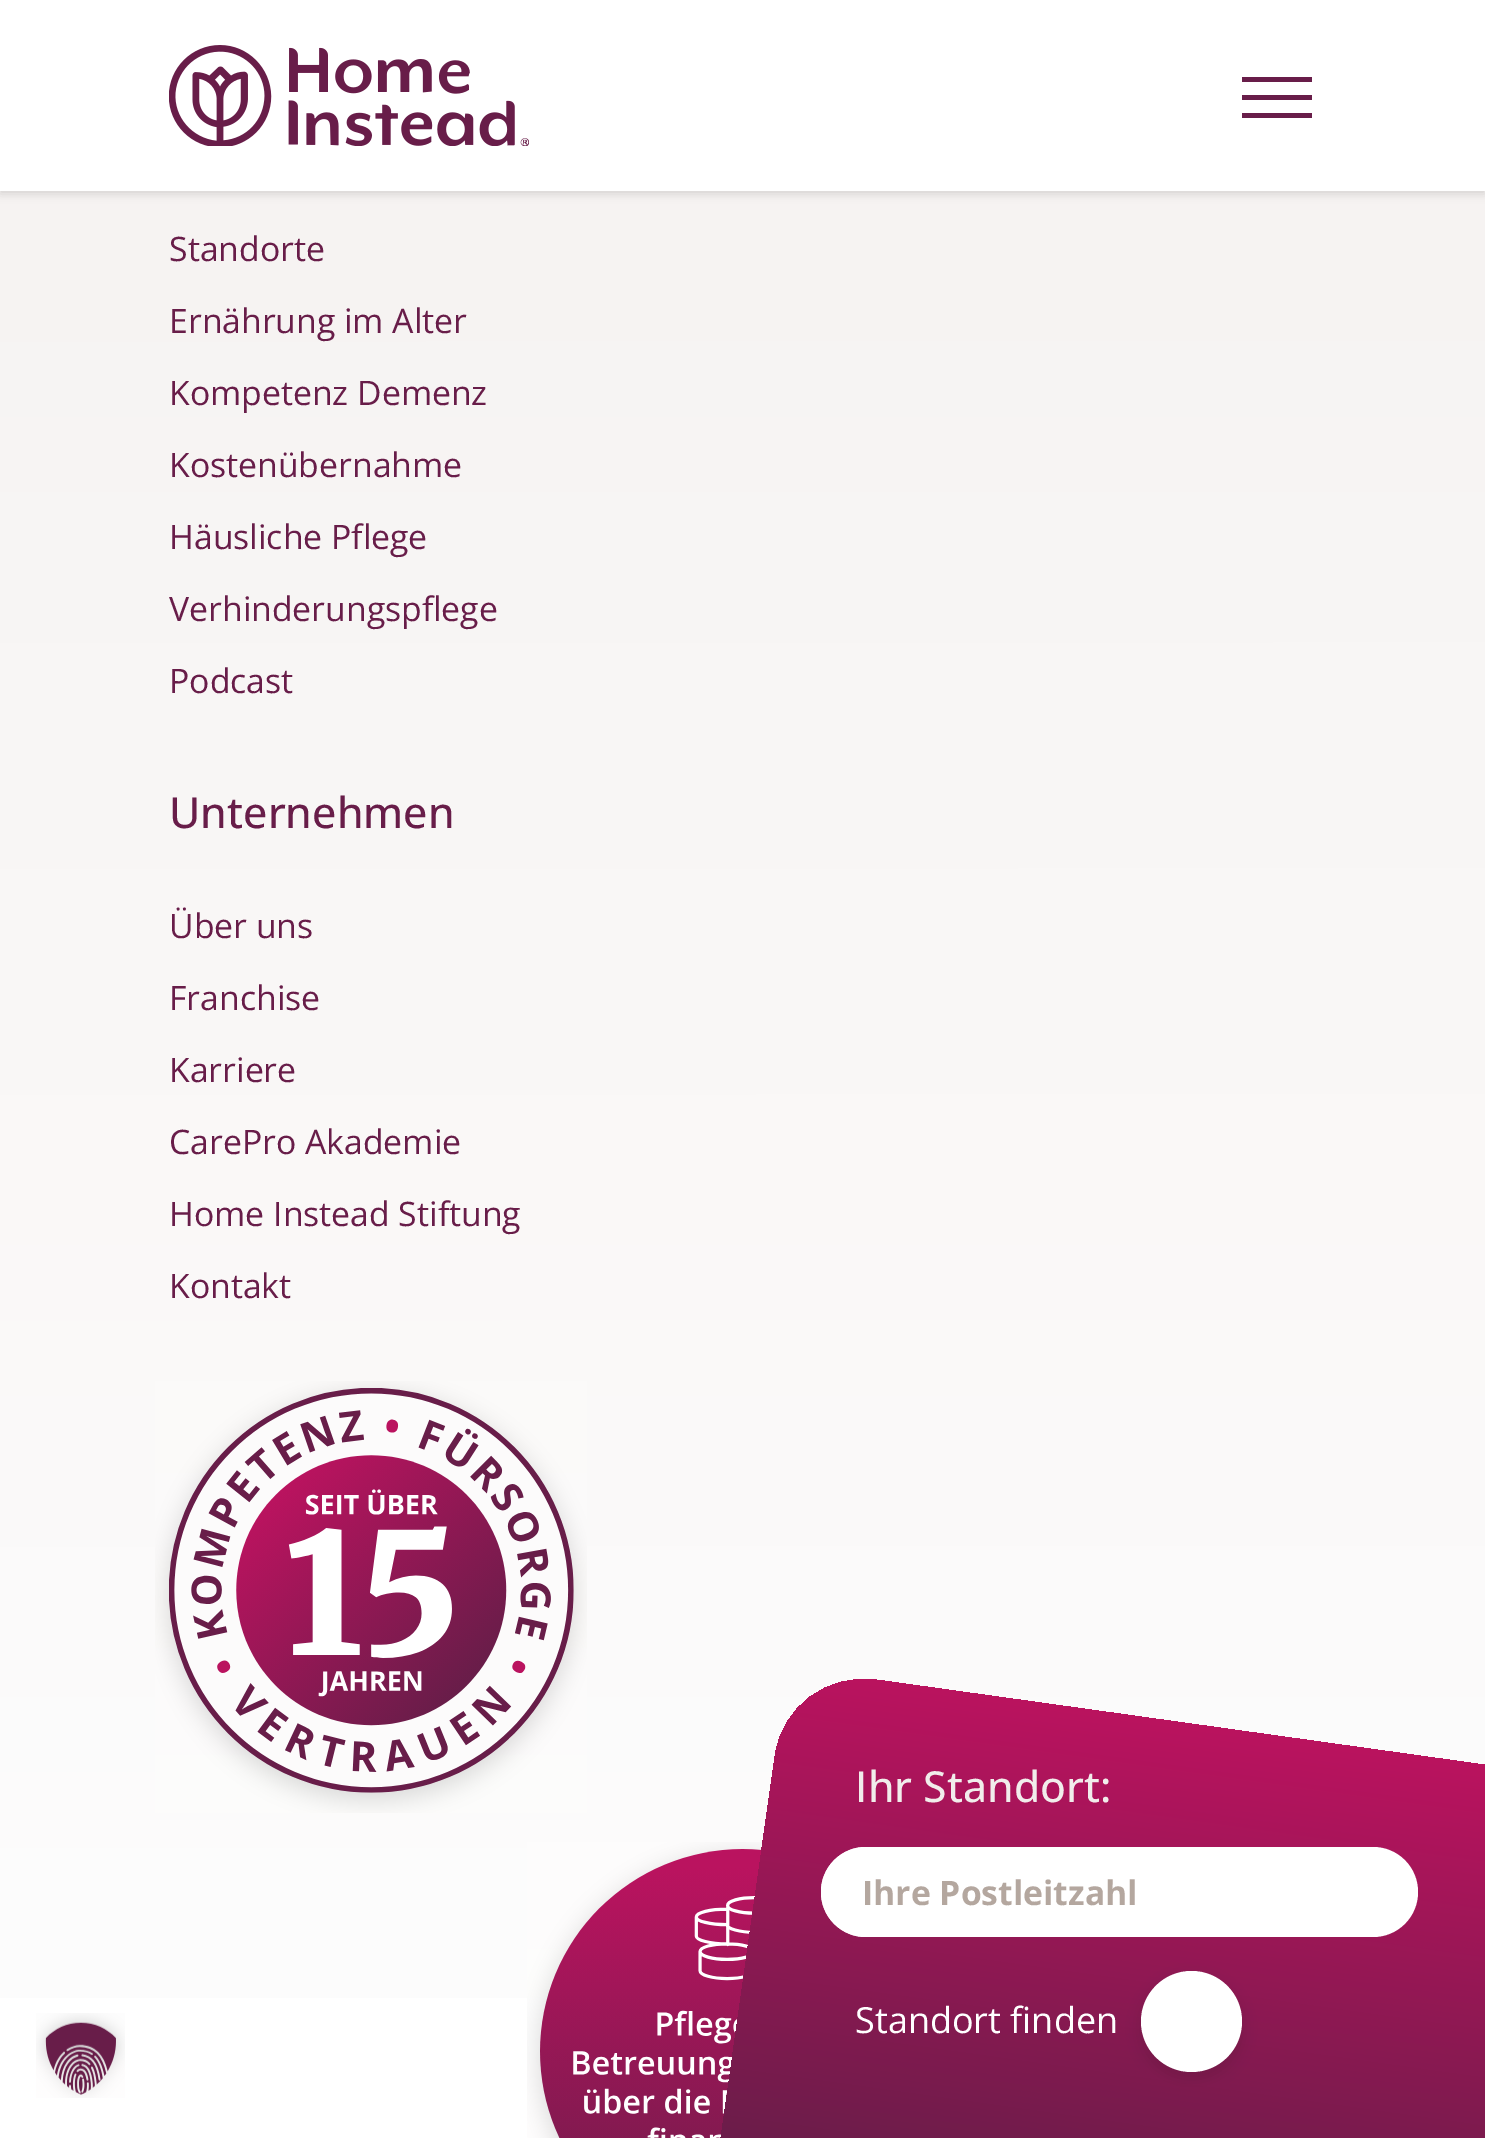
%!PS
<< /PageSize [1485 2138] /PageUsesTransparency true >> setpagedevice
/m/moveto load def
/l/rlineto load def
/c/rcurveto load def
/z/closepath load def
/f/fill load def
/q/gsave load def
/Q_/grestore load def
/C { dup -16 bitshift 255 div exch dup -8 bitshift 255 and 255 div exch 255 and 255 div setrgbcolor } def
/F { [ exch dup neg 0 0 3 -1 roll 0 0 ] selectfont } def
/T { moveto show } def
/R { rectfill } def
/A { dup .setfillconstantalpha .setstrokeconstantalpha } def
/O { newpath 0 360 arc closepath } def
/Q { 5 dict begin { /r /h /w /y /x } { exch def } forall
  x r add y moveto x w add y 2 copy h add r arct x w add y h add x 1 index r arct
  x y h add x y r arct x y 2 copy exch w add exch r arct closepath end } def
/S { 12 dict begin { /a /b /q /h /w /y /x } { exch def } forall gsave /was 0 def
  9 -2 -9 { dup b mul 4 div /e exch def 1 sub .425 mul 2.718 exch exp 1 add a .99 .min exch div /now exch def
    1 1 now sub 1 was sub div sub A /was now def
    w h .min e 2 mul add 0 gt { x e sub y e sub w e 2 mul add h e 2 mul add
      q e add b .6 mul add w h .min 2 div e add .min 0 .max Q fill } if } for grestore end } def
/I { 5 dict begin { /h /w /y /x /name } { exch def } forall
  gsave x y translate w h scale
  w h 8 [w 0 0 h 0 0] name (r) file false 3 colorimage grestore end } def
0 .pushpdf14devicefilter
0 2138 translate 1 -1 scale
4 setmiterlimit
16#FFFFFF C
0 0 1485 2138 R
q 0 191 m 1485 0 l 0 1807 l -1485 0 l z clip newpath
<< /ShadingType 2 /ColorSpace /DeviceRGB /Coords [742 -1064 743 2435] /Extend [true true] /Function << /FunctionType 2 /Domain [0 1] /C0 [.945 .929 .922] /C1 [1 1 1] /N 1 >> >> shfill Q_
16#000000 C
0 2 1485 192 0 4.5 .14 S
16#FFFFFF C
0 0 1485 191 R
(1.rgb) 169 45 360 101 I
16#681D49 C
1242 95 70 5 R
1242 77 70 5 R
1242 113 70 5 R
/OpenSans-Regular 33.75 F
(Standorte) 169 261 T
(Ernährung im Alter) 169 333 T
(Kompetenz Demenz) 169 405 T
(Kostenübernahme) 169 477 T
(Häusliche Pflege) 169 549 T
(Verhinderungspflege) 169 621 T
(Podcast) 169 693 T
/OpenSans-Medium 42.75 F
(Unternehmen) 169 828 T
/OpenSans-Regular 33.75 F
(Über uns) 169 938 T
(Franchise) 169 1010 T
(Karriere) 169 1082 T
(CarePro Akademie) 169 1154 T
(Home Instead Stiftung) 169 1226 T
(Kontakt) 169 1298 T
(2.rgb) 155 1381 432 432 I
(3.rgb) 527 1842 236 296 I
q 877 1680 m 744 104 l -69 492 l -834 -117 l 57 -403 l 7 -49 52 -83 102 -76 c z clip newpath
<< /ShadingType 2 /ColorSpace /DeviceRGB /Coords [1135 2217 1204 1726] /Extend [true true] /Function << /FunctionType 2 /Domain [0 1] /C0 [.408 .114 .286] /C1 [.729 .075 .373] /N 1 >> >> shfill Q_
/OpenSans-Medium 42.75 F
16#F1EDEB C
(Ihr Standort:) 855 1802 T
16#FFFFFF C
821 1847 597 90 45 Q f
821 1847 507 90 45 Q f
/OpenSans-Bold 33.75 F
16#B4A79F C
(Ihre Postleitzahl) 862 1905 T
/OpenSans-Regular 36 F
16#FFFFFF C
(Standort finden) 855 2033 T
16#000000 C
1141 1978 101 101 50.5 7 .1 S
16#FFFFFF C
1191.5 2021.5 50.5 O f
(4.rgb) 36 2013 89 85 I
.poppdf14devicefilter showpage
